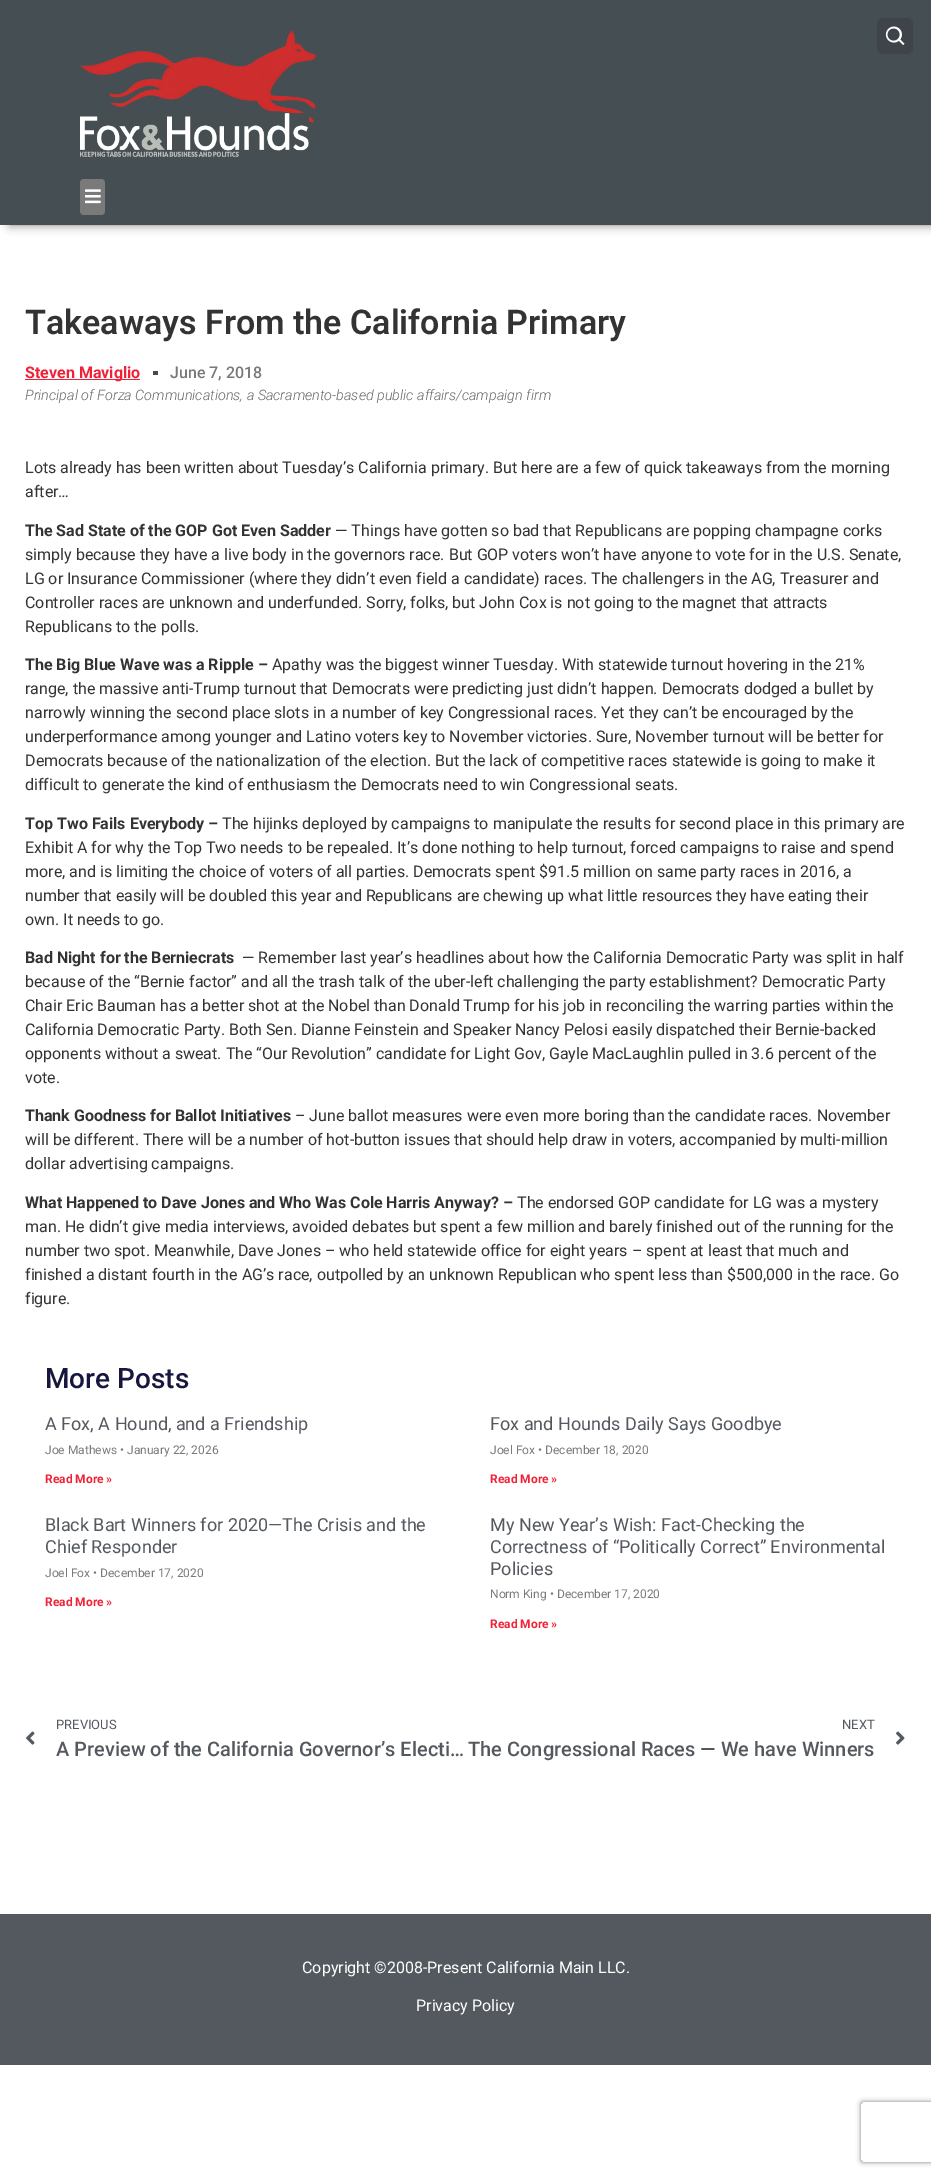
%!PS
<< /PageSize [931 2176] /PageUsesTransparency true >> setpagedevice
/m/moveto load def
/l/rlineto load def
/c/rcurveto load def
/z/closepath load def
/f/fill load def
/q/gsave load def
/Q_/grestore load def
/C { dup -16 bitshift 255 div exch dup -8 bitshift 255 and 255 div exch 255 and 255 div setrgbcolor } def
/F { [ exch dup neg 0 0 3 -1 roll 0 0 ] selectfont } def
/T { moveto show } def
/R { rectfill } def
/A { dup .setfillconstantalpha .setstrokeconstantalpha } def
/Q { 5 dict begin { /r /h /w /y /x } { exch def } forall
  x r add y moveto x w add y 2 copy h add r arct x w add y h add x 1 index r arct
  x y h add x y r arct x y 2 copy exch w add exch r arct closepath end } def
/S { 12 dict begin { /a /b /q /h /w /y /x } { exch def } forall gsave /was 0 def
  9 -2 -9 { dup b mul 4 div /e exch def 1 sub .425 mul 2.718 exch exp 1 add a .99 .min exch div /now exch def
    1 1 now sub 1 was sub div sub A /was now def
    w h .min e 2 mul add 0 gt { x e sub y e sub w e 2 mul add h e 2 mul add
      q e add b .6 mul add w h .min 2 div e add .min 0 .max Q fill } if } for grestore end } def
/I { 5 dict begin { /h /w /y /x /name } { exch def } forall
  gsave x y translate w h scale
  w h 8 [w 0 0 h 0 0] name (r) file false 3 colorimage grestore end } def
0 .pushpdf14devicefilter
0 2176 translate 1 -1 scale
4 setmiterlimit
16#FFFFFF C
0 0 931 2176 R
16#000000 C
10 0 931 225 0 5 .5 S
16#454E52 C
0 0 931 225 R
(1.rgb) 80 30 236 93 I
(2.rgb) 80 113 229 44 I
16#7A7A7A C
80 179 25 36 4 Q f
(3.rgb) 85 189 16 15 I
16#3E444A C
877 18 36 36 6 Q f
(4.rgb) 885 26 20 19 I
/Roboto-SemiBold 34 F
16#333333 C
(Takeaways From the California Primary) 25 334 T
16#F12237 C
25 379 115 1 R
/Roboto-Bold 16 F
(Steven Maviglio) 25 378 T
16#4A4A4A C
153 371 5 4 R
/Roboto-Medium 16 F
16#7A7A7A C
(June 7, 2018) 170 378 T
/Roboto-LightItalic 14.4 F
16#666666 C
(Principal of Forza Communications, a Sacramento-based public affairs/campaign firm) 25 400 T
/Roboto-Regular 16 F
16#333333 C
(Lots already has been written about Tuesday’s California primary. But here are a few of quick takeaways from the morning) 25 473 T
(after…) 25 497 T
/Roboto-Bold 16 F
(The Sad State of the GOP Got Even Sadder) 25 536 T
/Roboto-Regular 16 F
(— Things have gotten so bad that Republicans are popping champagne corks) 335 536 T
(simply because they have a live body in the governors race. But GOP voters won’t have anyone to vote for in the U.S. Senate,) 25 560 T
(LG or Insurance Commissioner \(where they didn’t even field a candidate\) races. The challengers in the AG, Treasurer and) 25 584 T
(Controller races are unknown and underfunded. Sorry, folks, but John Cox is not going to the magnet that attracts) 25 608 T
(Republicans to the polls.) 25 632 T
/Roboto-Bold 16 F
(The Big Blue Wave was a Ripple –) 25 670 T
/Roboto-Regular 16 F
(Apathy was the biggest winner Tuesday. With statewide turnout hovering in the 21%) 272 670 T
(range, the massive anti-Trump turnout that Democrats were predicting just didn’t happen. Democrats dodged a bullet by) 25 694 T
(narrowly winning the second place slots in a number of key Congressional races. Yet they can’t be encouraged by the) 25 718 T
(underperformance among younger and Latino voters key to November victories. Sure, November turnout will be better for) 25 742 T
(Democrats because of the nationalization of the election. But the lack of competitive races statewide is going to make it) 25 766 T
(difficult to generate the kind of enthusiasm the Democrats need to win Congressional seats.) 25 790 T
/Roboto-Bold 16 F
(Top Two Fails Everybody –) 25 829 T
/Roboto-Regular 16 F
(The hijinks deployed by campaigns to manipulate the results for second place in this primary are) 222 829 T
(Exhibit A for why the Top Two needs to be repealed. It’s done nothing to help turnout, forced campaigns to raise and spend) 25 853 T
(more, and is limiting the choice of voters of all parties. Democrats spent $91.5 million on same party races in 2016, a) 25 877 T
(number that easily will be doubled this year and Republicans are chewing up what little resources they have eating their) 25 901 T
(own. It needs to go.) 25 925 T
/Roboto-Bold 16 F
(Bad Night for the Berniecrats) 25 963 T
/Roboto-Regular 16 F
(— Remember last year’s headlines about how the California Democratic Party was split in half) 242 963 T
(because of the “Bernie factor” and all the trash talk of the uber-left challenging the party establishment? Democratic Party) 25 987 T
(Chair Eric Bauman has a better shot at the Nobel than Donald Trump for his job in reconciling the warring parties within the) 25 1011 T
(California Democratic Party. Both Sen. Dianne Feinstein and Speaker Nancy Pelosi easily dispatched their Bernie-backed) 25 1035 T
(opponents without a sweat. The “Our Revolution” candidate for Light Gov, Gayle MacLaughlin pulled in 3.6 percent of the) 25 1059 T
(vote.) 25 1083 T
/Roboto-Bold 16 F
(Thank Goodness for Ballot Initiatives) 25 1121 T
/Roboto-Regular 16 F
(– June ballot measures were even more boring than the candidate races. November) 295 1121 T
(will be different. There will be a number of hot-button issues that should help draw in voters, accompanied by multi-million) 25 1145 T
(dollar advertising campaigns.) 25 1169 T
/Roboto-Bold 16 F
(What Happened to Dave Jones and Who Was Cole Harris Anyway? –) 25 1208 T
/Roboto-Regular 16 F
(The endorsed GOP candidate for LG was a mystery) 517 1208 T
(man. He didn’t give media interviews, avoided debates but spent a few million and barely finished out of the running for the) 25 1232 T
(number two spot. Meanwhile, Dave Jones – who held statewide office for eight years – spent at least that much and) 25 1256 T
(finished a distant fourth in the AG’s race, outpolled by an unknown Republican who spent less than $500,000 in the race. Go) 25 1280 T
(figure.) 25 1304 T
/Roboto-Medium 28 F
16#16163F C
(More Posts) 45 1388 T
/Roboto-Regular 18 F
16#54595F C
(A Fox, A Hound, and a Friendship) 45 1430 T
/Roboto-Regular 12 F
16#7A7A7A C
(Joe Mathews • January 22, 2026) 45 1454 T
/Roboto-Bold 12 F
16#F12237 C
(Read More ») 45 1483 T
/Roboto-Regular 18 F
16#54595F C
(Fox and Hounds Daily Says Goodbye) 490 1430 T
/Roboto-Regular 12 F
16#7A7A7A C
(Joel Fox • December 18, 2020) 490 1454 T
/Roboto-Bold 12 F
16#F12237 C
(Read More ») 490 1483 T
/Roboto-Regular 18 F
16#54595F C
(Black Bart Winners for 2020—The Crisis and the) 45 1531 T
(Chief Responder) 45 1553 T
/Roboto-Regular 12 F
16#7A7A7A C
(Joel Fox • December 17, 2020) 45 1577 T
/Roboto-Bold 12 F
16#F12237 C
(Read More ») 45 1606 T
/Roboto-Regular 18 F
16#54595F C
(My New Year’s Wish: Fact-Checking the) 490 1531 T
(Correctness of “Politically Correct” Environmental) 490 1553 T
(Policies) 490 1575 T
/Roboto-Regular 12 F
16#7A7A7A C
(Norm King • December 17, 2020) 490 1598 T
/Roboto-Bold 12 F
16#F12237 C
(Read More ») 490 1628 T
(5.rgb) 26 1731 9 14 I
/Roboto-Regular 13 F
16#54595F C
(PREVIOUS) 56 1729 T
/Roboto-Medium 20 F
(A Preview of the California Governor’s Electi…) 56 1756 T
/Roboto-Regular 13 F
(NEXT) 842 1729 T
/Roboto-Medium 20 F
(The Congressional Races — We have Winners) 468 1756 T
(6.rgb) 896 1731 9 14 I
0 1914 931 151 R
/Roboto-Regular 16 F
16#FFFFFF C
(Copyright ©2008-Present California Main LLC.) 302 1973 T
(Privacy Policy) 416 2011 T
q
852 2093 m 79 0 l 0 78 l -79 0 l z 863 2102 m 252 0 l 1 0 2 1 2 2 c 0 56 l 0 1 -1 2 -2 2 c -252 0 l -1 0 -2 -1 -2 -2 c 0 -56 l 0 -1 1 -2 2 -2 c z eoclip newpath
16#808080 C
861 2102 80 60 2 2.5 1 S
Q_
.poppdf14devicefilter showpage
